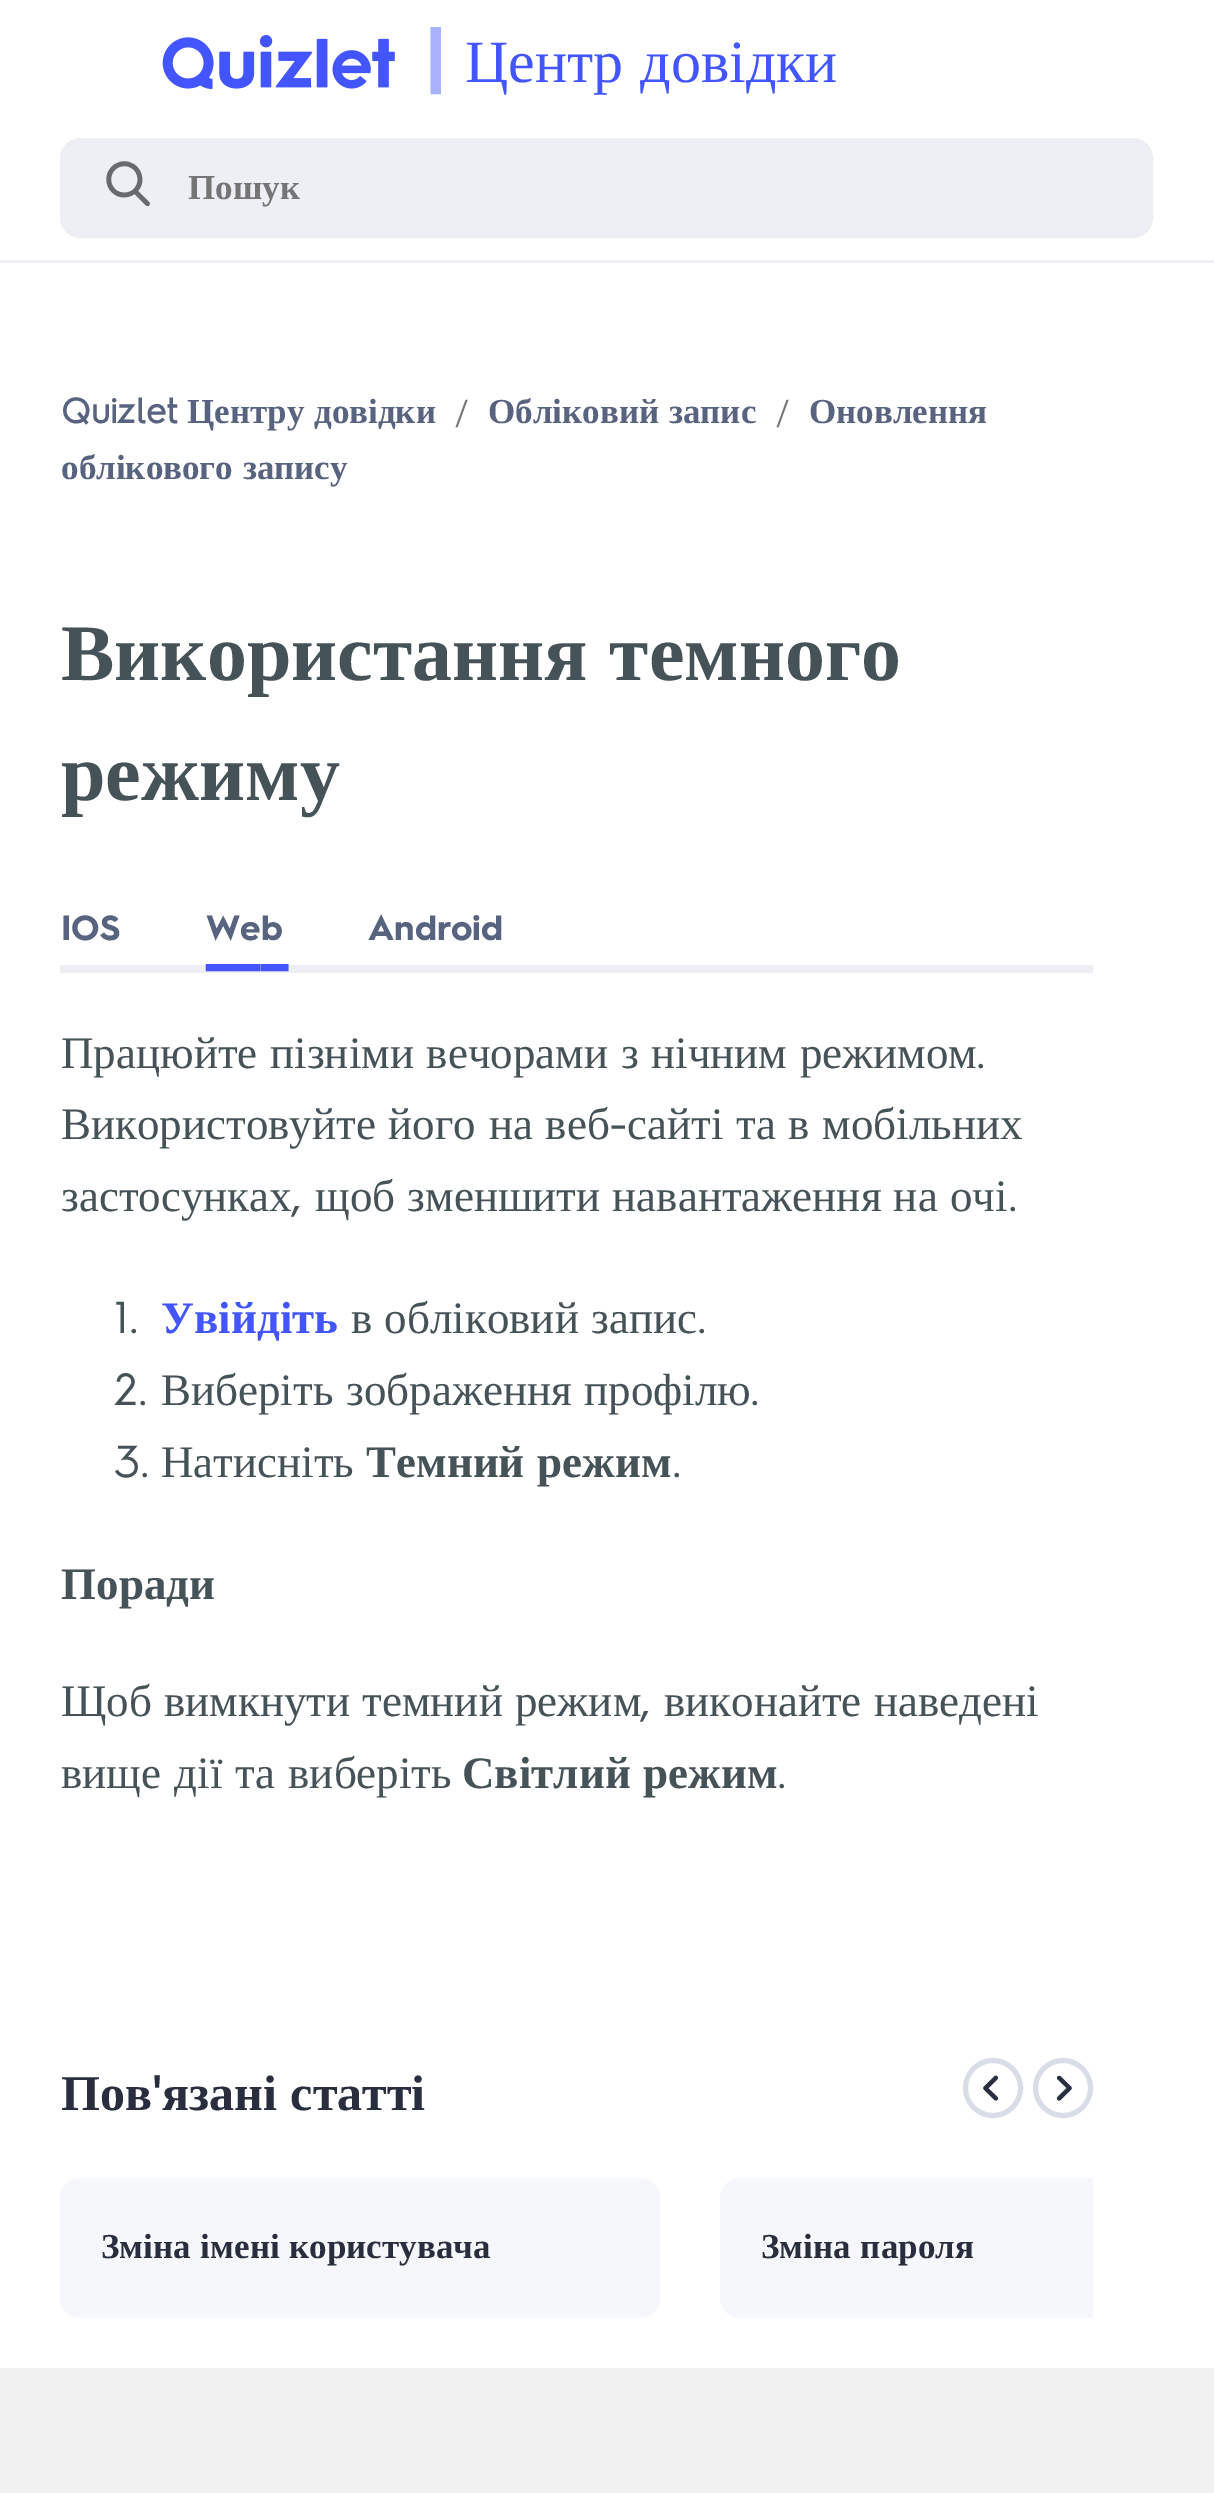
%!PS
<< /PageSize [1214 2493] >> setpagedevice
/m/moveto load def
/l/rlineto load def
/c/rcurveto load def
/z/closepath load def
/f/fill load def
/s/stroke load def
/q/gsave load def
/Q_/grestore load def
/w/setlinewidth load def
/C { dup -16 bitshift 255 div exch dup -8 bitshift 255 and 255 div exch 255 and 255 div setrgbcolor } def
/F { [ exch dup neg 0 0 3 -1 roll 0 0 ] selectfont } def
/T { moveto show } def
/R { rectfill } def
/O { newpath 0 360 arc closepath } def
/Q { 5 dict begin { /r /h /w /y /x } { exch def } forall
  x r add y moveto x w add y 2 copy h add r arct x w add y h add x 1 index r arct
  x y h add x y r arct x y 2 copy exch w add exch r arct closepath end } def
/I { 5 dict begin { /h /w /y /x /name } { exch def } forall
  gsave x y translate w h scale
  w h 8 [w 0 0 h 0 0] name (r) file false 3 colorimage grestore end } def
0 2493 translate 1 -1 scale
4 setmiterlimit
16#FFFFFF C
0 0 1214 2493 R
16#EDEFF4 C
0 260 1214 3 R
(1.rgb) 162 35 233 54 I
/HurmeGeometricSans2-SemiBold 90 F
16#A8B1FF C
423 92 m -9 0 (|) ashow
/LiberationSerif-Regular 60 F
16#4255FF C
465 82 m 2 0 32 (Центр довідки) widthshow
16#EDEFF4 C
61.5 139.5 1090 97 18.5 Q q f Q_
3 w
s
(2.rgb) 106 161 44 46 I
/LiberationSerif-Bold 35 F
16#757575 C
(Пошук) 188 199 T
/HurmeGeometricSans2-Bold 35 F
16#586380 C
(Quizlet) 61 423 T
/LiberationSerif-Bold 35 F
187 423 m 1 0 32 (Центру довідки) widthshow
/HurmeGeometricSans2-Regular 32 F
16#757575 C
(/) 455 423 T
/LiberationSerif-Bold 35 F
16#586380 C
488 423 m 1 0 32 (Обліковий запис) widthshow
/HurmeGeometricSans2-Regular 32 F
16#757575 C
(/) 776 423 T
/LiberationSerif-Bold 35 F
16#586380 C
(Оновлення) 809 423 T
61 479 m 1 0 32 (облікового запису) widthshow
/LiberationSerif-Bold 80 F
16#455358 C
61 680 m 2 0 32 (Використання темного) widthshow
(режиму) 61 800 T
/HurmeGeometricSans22-Bold 35 F
16#586380 C
(IOS) 61 940 T
(Web) 206 940 T
16#EDEFF4 C
60 965 1033 8 R
/HurmeGeometricSans22-Bold 65 F
16#4255FF C
(___) 206 960 T
/HurmeGeometricSans22-Bold 35 F
16#586380 C
(Android) 368 940 T
/LiberationSerif-Regular 45 F
16#455358 C
61 1068 m 1.5 0 32 (Працюйте пізніми вечорами з нічним режимом) widthshow
/HurmeGeometricSans2-Regular 45 F
(.) 976 1068 T
/LiberationSerif-Regular 45 F
61 1139 m 1.5 0 32 (Використовуйте його на веб) widthshow
/HurmeGeometricSans2-Regular 45 F
(-) 609 1139 T
/LiberationSerif-Regular 45 F
627 1139 m 1.5 0 32 (сайті та в мобільних) widthshow
(застосунках) 61 1211 T
/HurmeGeometricSans2-Regular 45 F
(,) 292 1211 T
/LiberationSerif-Regular 45 F
315 1211 m 1 0 32 (щоб зменшити навантаження на очі) widthshow
/HurmeGeometricSans2-Regular 45 F
(.) 1008 1211 T
(1.) 114 1333 T
/LiberationSerif-Bold 45 F
16#4255FF C
(Увійдіть) 161 1333 T
/LiberationSerif-Regular 45 F
16#455358 C
351 1333 m 1 0 32 (в обліковий запис) widthshow
/HurmeGeometricSans2-Regular 45 F
(.) 697 1333 T
(2.) 114 1405 T
/LiberationSerif-Regular 45 F
161 1405 m 1.5 0 32 (Виберіть зображення профілю) widthshow
/HurmeGeometricSans2-Regular 45 F
(.) 750 1405 T
(3.) 114 1477 T
/LiberationSerif-Regular 45 F
(Натисніть) 161 1477 T
/LiberationSerif-Bold 45 F
366 1477 m 1.5 0 32 (Темний режим) widthshow
/HurmeGeometricSans2-Regular 45 F
(.) 672 1477 T
/LiberationSerif-Bold 45 F
(Поради) 61 1599 T
/LiberationSerif-Regular 45 F
61 1716 m 1 0 32 (Щоб вимкнути темний режим) widthshow
/HurmeGeometricSans2-Regular 45 F
(,) 641 1716 T
/LiberationSerif-Regular 45 F
664 1716 m 1 0 32 (виконайте наведені) widthshow
61 1788 m 2 0 32 (вище дії та виберіть) widthshow
/LiberationSerif-Bold 45 F
462 1788 m 1.5 0 32 (Світлий режим) widthshow
/HurmeGeometricSans2-Regular 45 F
(.) 777 1788 T
/LiberationSerif-Bold 50 F
16#282E3E C
(Пов) 61 2110 T
/HurmeGeometricSans2-SemiBold 50 F
(') 152 2110 T
/LiberationSerif-Bold 50 F
162 2110 m 1 0 32 (язані статті) widthshow
16#D9DDE8 C
5 w
993 2088 27.5 O s
(3.rgb) 983 2075 16 26 I
1063 2088 27.5 O s
(4.rgb) 1056 2075 16 26 I
16#F6F7FB C
60 2178 600 140 20 Q f
/LiberationSerif-Bold 35 F
16#282E3E C
101 2258 m 1 0 32 (Зміна імені користувача) widthshow
16#F6F7FB C
740 2178 m 353 0 l 0 140 l -353 0 l -11 0 -20 -9 -20 -20 c 0 -100 l 0 -11 9 -20 20 -20 c z f
16#282E3E C
761 2258 m 1 0 32 (Зміна пароля) widthshow
16#F0F0F0 C
0 2368 1214 125 R
showpage
